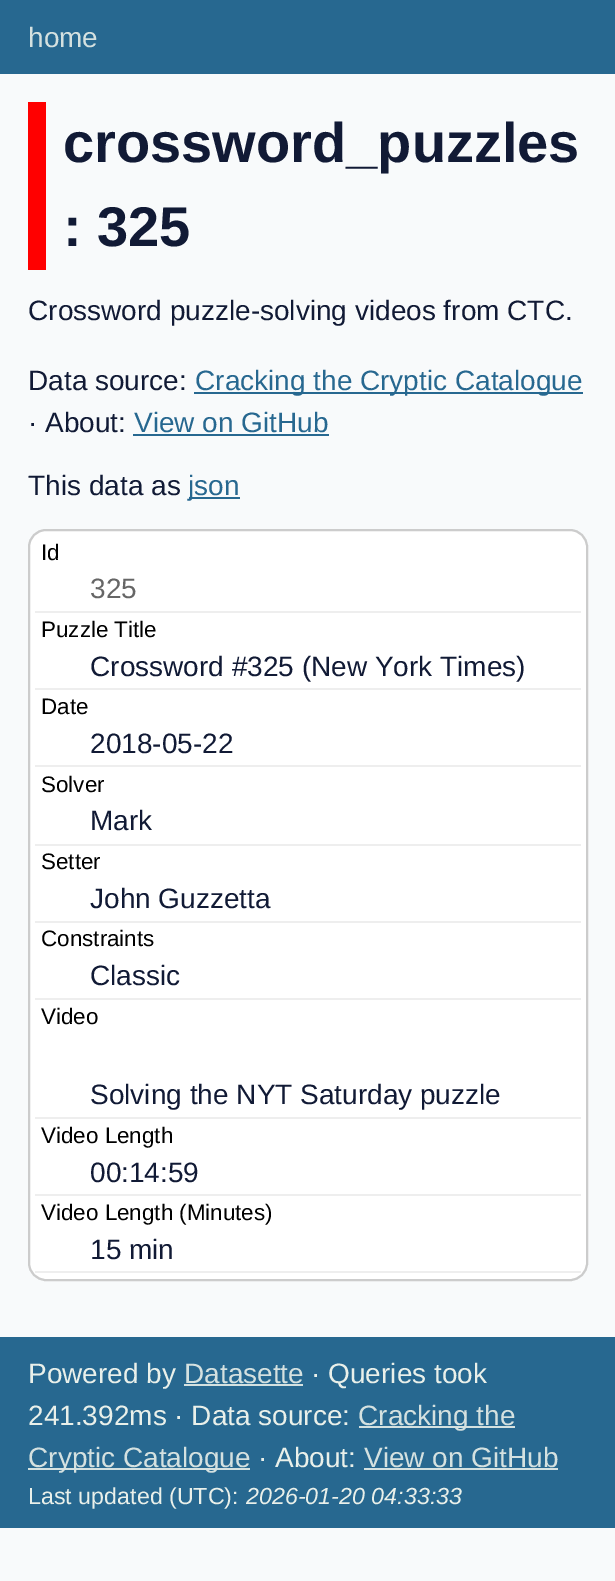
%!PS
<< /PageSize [615 1581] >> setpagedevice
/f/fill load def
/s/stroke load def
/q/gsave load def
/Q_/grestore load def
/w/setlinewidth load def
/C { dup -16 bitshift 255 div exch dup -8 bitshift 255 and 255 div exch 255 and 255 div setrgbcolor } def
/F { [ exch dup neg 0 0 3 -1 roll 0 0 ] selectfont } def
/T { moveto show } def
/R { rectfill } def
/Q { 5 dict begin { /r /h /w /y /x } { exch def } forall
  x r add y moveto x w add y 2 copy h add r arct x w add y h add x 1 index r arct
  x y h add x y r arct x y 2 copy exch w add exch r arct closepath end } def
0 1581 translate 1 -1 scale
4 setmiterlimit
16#F8FAFB C
0 0 615 1581 R
16#276890 C
0 0 615 74 R
/LiberationSans-Regular 28 F
16#D4E1E0 C
(home) 28 47 T
16#FF0000 C
28 102 18 168 R
/LiberationSans-Bold 56 F
16#111A35 C
(crossword_puzzles) 63 162 T
(: 325) 63 246 T
/LiberationSans-Regular 28 F
(Crossword puzzle-solving videos from CTC.) 28 320 T
(Data source:) 28 390 T
16#276890 C
194 392 389 2 R
(Cracking the Cryptic Catalogue) 195 390 T
16#111A35 C
(· About:) 28 432 T
16#276890 C
(View on GitHub) 134 432 T
133 434 196 2 R
16#111A35 C
(This data as) 28 495 T
16#276890 C
189 497 51 2 R
(json) 188 495 T
16#FFFFFF C
29 530 558 750 17 Q q f Q_
16#CCCCCC C
2 w
s
16#EEEEEE C
35 611 546 2 R
/LiberationSans-Regular 22.4 F
16#000000 C
(Id) 41 560 T
/LiberationSans-Regular 28 F
16#666666 C
(325) 90 598 T
16#EEEEEE C
35 688 546 2 R
/LiberationSans-Regular 22.4 F
16#000000 C
(Puzzle Title) 41 637 T
/LiberationSans-Regular 28 F
16#111A35 C
(Crossword #325 \(New York Times\)) 90 676 T
16#EEEEEE C
35 765 546 2 R
/LiberationSans-Regular 22.4 F
16#000000 C
(Date) 41 714 T
/LiberationSans-Regular 28 F
16#111A35 C
(2018-05-22) 90 753 T
16#EEEEEE C
35 844 546 2 R
/LiberationSans-Regular 22.4 F
16#000000 C
(Solver) 41 792 T
/LiberationSans-Regular 28 F
16#111A35 C
(Mark) 90 830 T
16#EEEEEE C
35 921 546 2 R
/LiberationSans-Regular 22.4 F
16#000000 C
(Setter) 41 869 T
/LiberationSans-Regular 28 F
16#111A35 C
(John Guzzetta) 90 908 T
16#EEEEEE C
35 998 546 2 R
/LiberationSans-Regular 22.4 F
16#000000 C
(Constraints) 41 946 T
/LiberationSans-Regular 28 F
16#111A35 C
(Classic) 90 985 T
16#EEEEEE C
35 1117 546 2 R
/LiberationSans-Regular 22.4 F
16#000000 C
(Video) 41 1024 T
/LiberationSans-Regular 28 F
16#111A35 C
(Solving the NYT Saturday puzzle) 90 1104 T
16#EEEEEE C
35 1194 546 2 R
/LiberationSans-Regular 22.4 F
16#000000 C
(Video Length) 41 1143 T
/LiberationSans-Regular 28 F
16#111A35 C
(00:14:59) 90 1182 T
16#EEEEEE C
35 1271 546 2 R
/LiberationSans-Regular 22.4 F
16#000000 C
(Video Length \(Minutes\)) 41 1220 T
/LiberationSans-Regular 28 F
16#111A35 C
(15 min) 90 1259 T
16#276890 C
0 1337 615 191 R
16#E9F0EA C
(Powered by) 28 1383 T
16#D4E1E0 C
(Datasette) 184 1383 T
184 1384 119 2 R
16#E9F0EA C
(· Queries took) 311 1383 T
(241.392ms · Data source:) 28 1425 T
16#D4E1E0 C
359 1426 156 2 R
(Cracking the) 358 1425 T
28 1468 222 2 R
(Cryptic Catalogue) 28 1467 T
16#E9F0EA C
(· About:) 258 1467 T
16#D4E1E0 C
(View on GitHub) 364 1467 T
364 1468 194 2 R
/LiberationSans-Regular 23.25 F
16#E9F0EA C
(Last updated \(UTC\):) 28 1504 T
/LiberationSans-Italic 23.25 F
(2026-01-20 04:33:33) 246 1504 T
showpage
